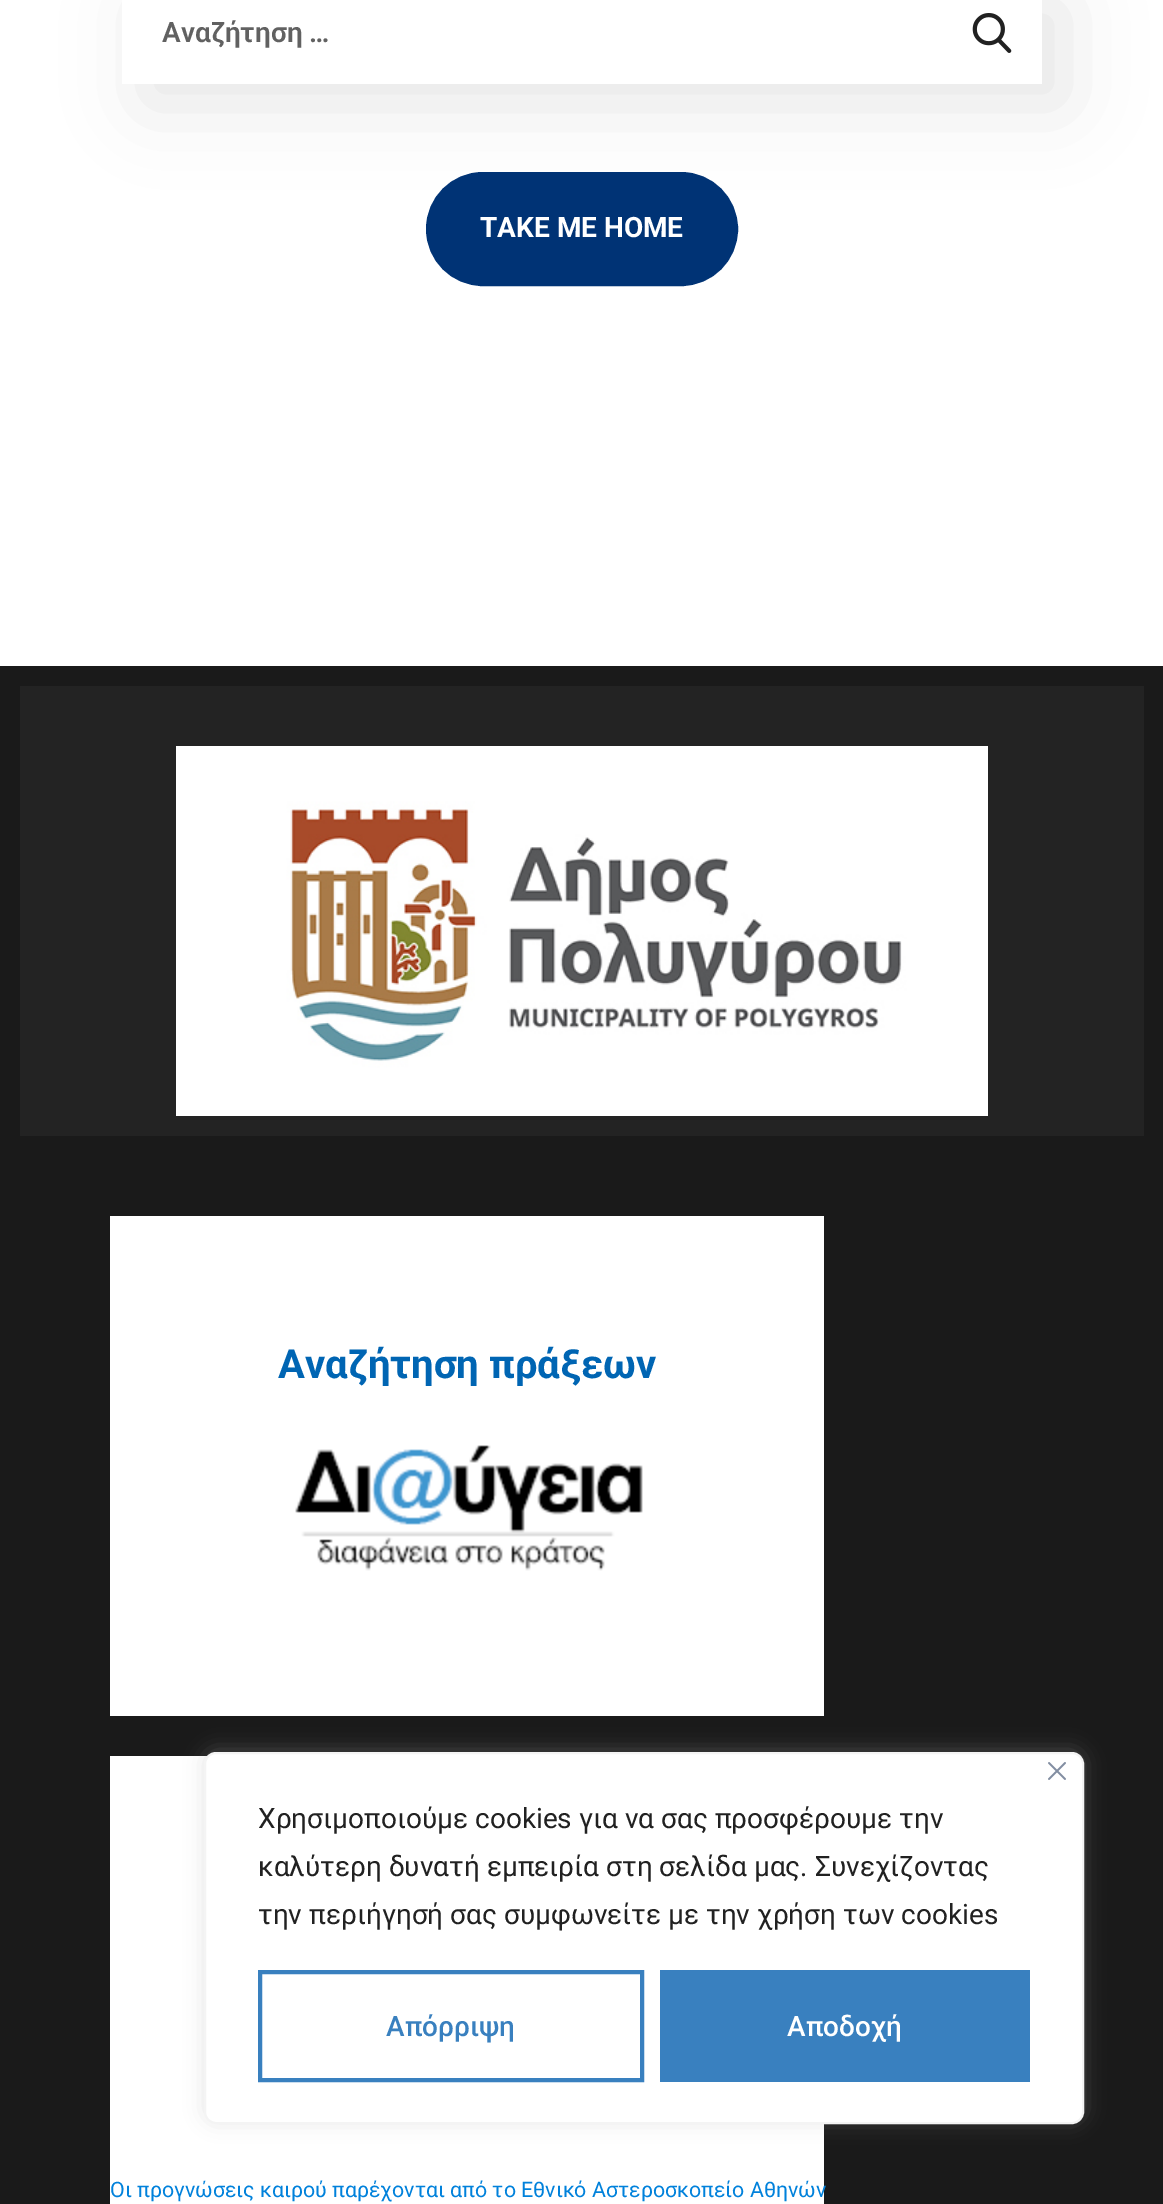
%!PS
<< /PageSize [1163 2204] /PageUsesTransparency true >> setpagedevice
/m/moveto load def
/l/rlineto load def
/z/closepath load def
/f/fill load def
/s/stroke load def
/q/gsave load def
/Q_/grestore load def
/w/setlinewidth load def
/C { dup -16 bitshift 255 div exch dup -8 bitshift 255 and 255 div exch 255 and 255 div setrgbcolor } def
/F { [ exch dup neg 0 0 3 -1 roll 0 0 ] selectfont } def
/T { moveto show } def
/R { rectfill } def
/A { dup .setfillconstantalpha .setstrokeconstantalpha } def
/Q { 5 dict begin { /r /h /w /y /x } { exch def } forall
  x r add y moveto x w add y 2 copy h add r arct x w add y h add x 1 index r arct
  x y h add x y r arct x y 2 copy exch w add exch r arct closepath end } def
/S { 12 dict begin { /a /b /q /h /w /y /x } { exch def } forall gsave /was 0 def
  9 -2 -9 { dup b mul 4 div /e exch def 1 sub .425 mul 2.718 exch exp 1 add a .99 .min exch div /now exch def
    1 1 now sub 1 was sub div sub A /was now def
    w h .min e 2 mul add 0 gt { x e sub y e sub w e 2 mul add h e 2 mul add
      q e add b .6 mul add w h .min 2 div e add .min 0 .max Q fill } if } for grestore end } def
/I { 5 dict begin { /h /w /y /x /name } { exch def } forall
  gsave x y translate w h scale
  w h 8 [w 0 0 h 0 0] name (r) file false 3 colorimage grestore end } def
0 .pushpdf14devicefilter
0 2204 translate 1 -1 scale
4 setmiterlimit
16#FFFFFF C
0 0 1163 2204 R
16#003375 C
429 175 306 108 54 Q q f Q_
6 w
s
q
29 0 m 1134 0 l 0 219 l -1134 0 l z 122 -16 m 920 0 l 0 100 l -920 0 l z eoclip newpath
16#000000 C
144 4 920 100 0 38 .1 S
Q_
/Roboto-SemiBold 28 F
16#616161 C
(Αναζήτηση …) 162 42 T
(1.rgb) 972 13 40 40 I
/Roboto-Bold 28 F
16#FFFFFF C
(TAKE ME HOME) 480 237 T
16#1A1A1A C
0 666 1163 1538 R
16#232323 C
20 686 1124 450 R
(2.rgb) 176 746 812 370 I
16#FFFFFF C
110 1216 714 500 R
/Roboto-Bold 40 F
16#0065B3 C
(Αναζήτηση πράξεων) 278 1378 T
(3.rgb) 295 1445 348 126 I
16#FFFFFF C
110 1756 714 448 R
/Roboto-Regular 21.35 F
16#0081DB C
(Οι προγνώσεις καιρού παρέχονται από το Εθνικό Αστεροσκοπείο Αθηνών) 110 2197 T
16#ACABAB C
204 1750 880 372 12 10 .3 S
16#FFFFFF C
205 1753 878 370 11 Q q f Q_
16#F4F4F4 C
2 w
s
(4.rgb) 1048 1762 18 18 I
/Roboto-Regular 28 F
16#212121 C
(Χρησιμοποιούμε cookies για να σας προσφέρουμε την) 258 1828 T
(καλύτερη δυνατή εμπειρία στη σελίδα μας. Συνεχίζοντας) 258 1876 T
(την περιήγησή σας συμφωνείτε με την χρήση των cookies) 258 1924 T
16#3980BF C
4 w
260 1972 382 108 rectstroke
/Roboto-Medium 28 F
(Απόρριψη) 386 2036 T
660 1970 370 112 R
16#FFFFFF C
(Αποδοχή) 787 2036 T
.poppdf14devicefilter showpage
